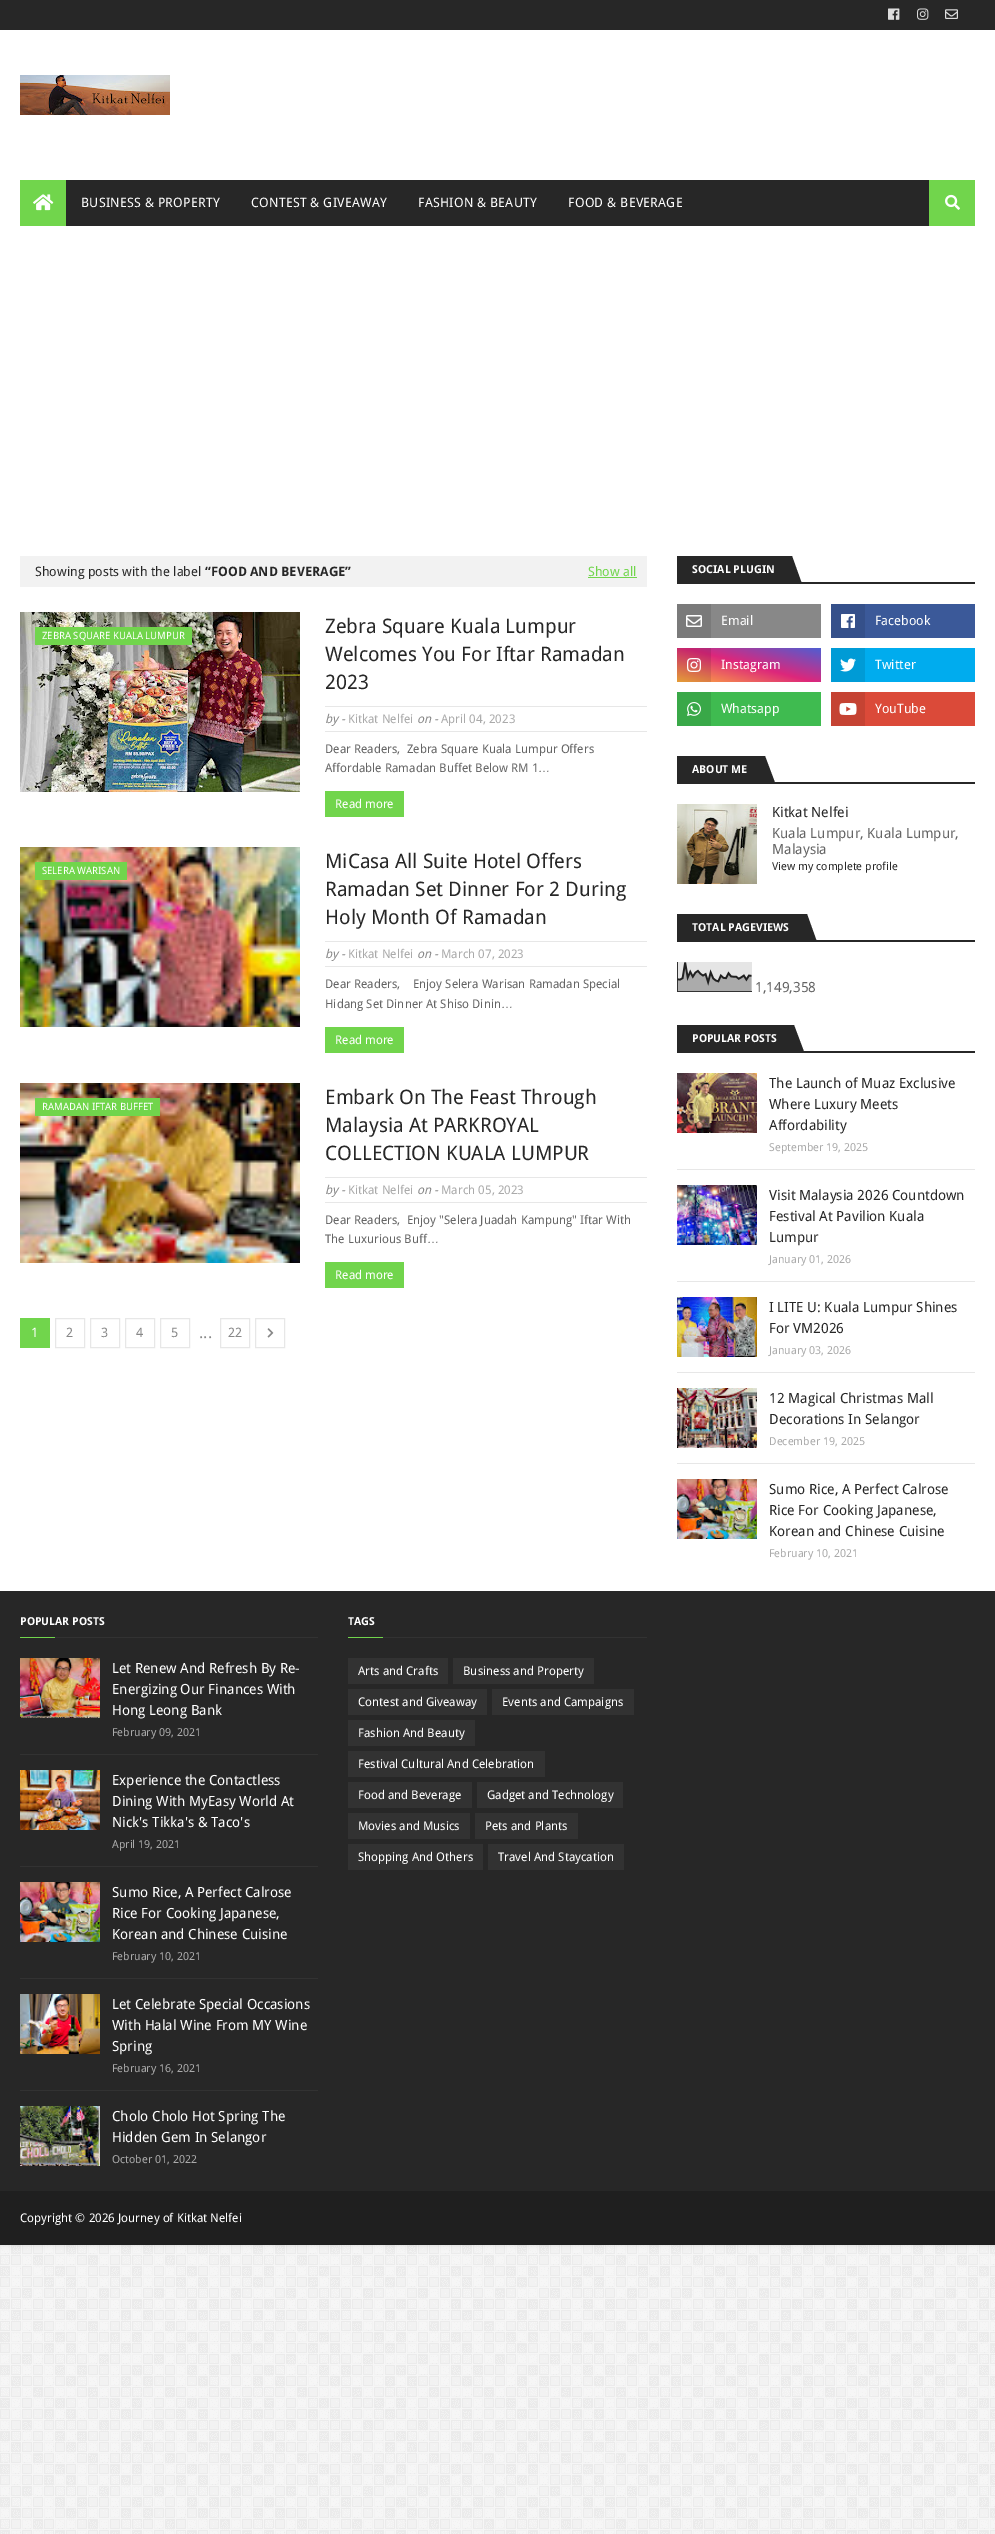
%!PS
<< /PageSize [995 2534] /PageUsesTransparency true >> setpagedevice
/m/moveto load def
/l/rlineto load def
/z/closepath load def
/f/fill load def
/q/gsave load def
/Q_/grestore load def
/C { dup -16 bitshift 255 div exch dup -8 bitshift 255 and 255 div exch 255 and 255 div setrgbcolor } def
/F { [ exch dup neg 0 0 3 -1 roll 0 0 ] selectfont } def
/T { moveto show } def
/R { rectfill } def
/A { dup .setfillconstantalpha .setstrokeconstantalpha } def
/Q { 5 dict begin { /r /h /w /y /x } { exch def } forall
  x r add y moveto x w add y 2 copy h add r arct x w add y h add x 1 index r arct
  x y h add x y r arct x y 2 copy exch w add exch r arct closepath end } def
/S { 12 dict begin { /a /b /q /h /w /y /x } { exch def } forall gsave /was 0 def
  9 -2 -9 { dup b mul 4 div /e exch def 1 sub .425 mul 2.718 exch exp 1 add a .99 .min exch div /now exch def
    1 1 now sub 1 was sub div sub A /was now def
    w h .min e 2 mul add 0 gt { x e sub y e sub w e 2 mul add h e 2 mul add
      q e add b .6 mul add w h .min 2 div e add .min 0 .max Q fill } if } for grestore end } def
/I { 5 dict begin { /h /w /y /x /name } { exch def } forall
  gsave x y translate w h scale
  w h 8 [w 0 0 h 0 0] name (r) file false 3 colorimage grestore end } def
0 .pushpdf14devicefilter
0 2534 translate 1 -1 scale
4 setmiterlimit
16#F8F8F8 C
0 0 995 2534 R
(1.rgb) 0 2245 995 289 I
16#000000 C
0 0 995 2245 0 2.5 .1 S
16#FFFFFF C
0 30 995 1561 R
16#272727 C
0 0 995 30 R
(2.rgb) 888 8 12 12 I
(3.rgb) 917 8 12 12 I
(4.rgb) 945 9 13 10 I
(5.rgb) 20 75 150 40 I
66 180 863 46 R
16#71D54C C
20 180 46 46 R
(6.rgb) 33 194 21 17 I
/DroidSans-Regular 13 F
16#FFFFFF C
81 207 m .25 0 (BUSINESS & PROPERTY) ashow
251 207 m .25 0 (CONTEST & GIVEAWAY) ashow
418 207 m .25 0 (FASHION & BEAUTY) ashow
568 207 m .25 0 (FOOD & BEVERAGE) ashow
16#71D54C C
929 180 46 46 R
(7.rgb) 945 194 15 16 I
16#F2F2F2 C
20 556 627 31 R
16#272727 C
(Showing posts with the label) 35 576 T
/DroidSans-Bold 13 F
(“FOOD AND BEVERAGE”) 205 576 T
/DroidSans-Regular 13 F
16#71D54C C
(Show all) 588 576 T
588 577 49 1 R
(8.rgb) 20 612 280 180 I
35 627 157 18 R
/DroidSans-Regular 10 F
16#FFFFFF C
(ZEBRA SQUARE KUALA LUMPUR) 42 639 T
/DroidSans-Regular 20 F
16#272727 C
(Zebra Square Kuala Lumpur) 325 633 T
(Welcomes You For Iftar Ramadan) 325 661 T
(2023) 325 689 T
16#E7E7E7 C
325 706 322 1 R
325 731 322 1 R
/DroidSans-Italic 12 F
16#888888 C
(by -) 325 723 T
/DroidSans-Regular 12 F
16#AAAAAA C
(Kitkat Nelfei) 348 723 T
/DroidSans-Italic 12 F
16#888888 C
(on -) 417 723 T
/DroidSans-Regular 12 F
16#AAAAAA C
(April 04, 2023) 441 723 T
16#656565 C
(Dear Readers,  Zebra Square Kuala Lumpur Offers) 325 753 T
(Affordable Ramadan Buffet Below RM 1) 325 772 T
/LiberationSans-Regular 12 F
(…) 538 772 T
16#71D54C C
325 791 79 26 R
/DroidSans-Regular 12 F
16#FFFFFF C
(Read more) 335 808 T
(9.rgb) 20 847 280 180 I
16#71D54C C
35 862 92 18 R
/DroidSans-Regular 10 F
16#FFFFFF C
(SELERA WARISAN) 42 874 T
/DroidSans-Regular 20 F
16#272727 C
(MiCasa All Suite Hotel Offers) 325 868 T
(Ramadan Set Dinner For 2 During) 325 896 T
(Holy Month Of Ramadan) 325 924 T
16#E7E7E7 C
325 941 322 1 R
325 966 322 1 R
/DroidSans-Italic 12 F
16#888888 C
(by -) 325 958 T
/DroidSans-Regular 12 F
16#AAAAAA C
(Kitkat Nelfei) 348 958 T
/DroidSans-Italic 12 F
16#888888 C
(on -) 417 958 T
/DroidSans-Regular 12 F
16#AAAAAA C
(March 07, 2023) 441 958 T
16#656565 C
(Dear Readers,    Enjoy Selera Warisan Ramadan Special) 325 988 T
(Hidang Set Dinner At Shiso Dinin) 325 1008 T
/LiberationSans-Regular 12 F
(…) 501 1008 T
16#71D54C C
325 1027 79 26 R
/DroidSans-Regular 12 F
16#FFFFFF C
(Read more) 335 1044 T
(10.rgb) 20 1083 280 180 I
16#71D54C C
35 1098 125 18 R
/DroidSans-Regular 10 F
16#FFFFFF C
(RAMADAN IFTAR BUFFET) 42 1110 T
/DroidSans-Regular 20 F
16#272727 C
(Embark On The Feast Through) 325 1104 T
(Malaysia At PARKROYAL) 325 1132 T
(COLLECTION KUALA LUMPUR) 325 1160 T
16#E7E7E7 C
325 1177 322 1 R
325 1202 322 1 R
/DroidSans-Italic 12 F
16#888888 C
(by -) 325 1194 T
/DroidSans-Regular 12 F
16#AAAAAA C
(Kitkat Nelfei) 348 1194 T
/DroidSans-Italic 12 F
16#888888 C
(on -) 417 1194 T
/DroidSans-Regular 12 F
16#AAAAAA C
(March 05, 2023) 441 1194 T
16#656565 C
(Dear Readers,  Enjoy "Selera Juadah Kampung" Iftar With) 325 1224 T
(The Luxurious Buff) 325 1243 T
/LiberationSans-Regular 12 F
(…) 427 1243 T
16#71D54C C
325 1262 79 26 R
/DroidSans-Regular 12 F
16#FFFFFF C
(Read more) 335 1279 T
16#71D54C C
20 1318 30 30 R
/DroidSans-Regular 13 F
16#FFFFFF C
(1) 31 1337 T
16#E7E7E7 C
55.5 1318.5 29 29 rectstroke
16#888888 C
(2) 66 1337 T
16#E7E7E7 C
90.5 1318.5 29 29 rectstroke
16#888888 C
(3) 101 1337 T
16#E7E7E7 C
125.5 1318.5 29 29 rectstroke
16#888888 C
(4) 136 1337 T
16#E7E7E7 C
160.5 1318.5 29 29 rectstroke
16#888888 C
(5) 171 1337 T
16#E7E7E7 C
220.5 1318.5 29 29 rectstroke
16#888888 C
(22) 228 1337 T
16#E7E7E7 C
255.5 1318.5 29 29 rectstroke
(11.rgb) 267 1328 7 10 I
/DroidSans-Regular 16 F
16#888888 C
(...) 199 1338 T
16#272727 C
801 582 174 2 R
677 556 110 28 R
/DroidSans-Bold 11 F
16#FFFFFF C
(SOCIAL PLUGIN) 692 573 T
16#272727 C
777 556 m 15 0 l 10 28 l -15 0 l z f
16#888888 C
711 604 110 34 R
16#7A7A7A C
677 604 34 34 R
(12.rgb) 686 615 16 12 I
/DroidSans-Regular 13 F
16#FFFFFF C
(Email) 721 625 T
16#3B5999 C
865 604 110 34 R
16#35508A C
831 604 34 34 R
(13.rgb) 841 614 14 14 I
16#FFFFFF C
(Facebook) 875 625 T
q 677 648 m 144 0 l 0 34 l -144 0 l z clip newpath
<< /ShadingType 2 /ColorSpace /DeviceRGB /Coords [740 699 758 631] /Extend [true true] /Function << /FunctionType 3 /Domain [0 1] /Functions [<< /FunctionType 2 /Domain [0 1] /C0 [1 .694 .239] /C1 [.867 .153 .482] /N 1 >> << /FunctionType 2 /Domain [0 1] /C0 [.867 .153 .482] /C1 [.302 .369 .831] /N 1 >>] /Bounds [.5] /Encode [0 1 0 1] >> >> shfill Q_
0.1 A
16#000000 C
677 648 34 34 R
1 A
(14.rgb) 687 658 14 14 I
16#FFFFFF C
(Instagram) 721 669 T
16#00ACEE C
865 648 110 34 R
16#009BD6 C
831 648 34 34 R
(15.rgb) 840 658 16 14 I
16#FFFFFF C
(Twitter) 875 669 T
16#3FBB50 C
711 692 110 34 R
16#39A848 C
677 692 34 34 R
(16.rgb) 687 702 14 14 I
16#FFFFFF C
(Whatsapp) 721 713 T
16#DB4A39 C
865 692 110 34 R
16#C54333 C
831 692 34 34 R
(17.rgb) 839 703 18 12 I
16#FFFFFF C
(YouTube) 875 713 T
16#272727 C
774 782 201 2 R
677 756 84 28 R
/DroidSans-Bold 11 F
16#FFFFFF C
(ABOUT ME) 692 773 T
16#272727 C
750 756 m 15 0 l 10.5 28 l -15 0 l z f
(18.rgb) 677 804 80 80 I
/DroidSans-Regular 14 F
(Kitkat Nelfei) 772 817 T
16#656565 C
(Kuala Lumpur, Kuala Lumpur,) 772 838 T
(Malaysia) 772 854 T
/DroidSans-Regular 11 F
16#272727 C
(View my complete profile) 772 870 T
816 940 159 2 R
677 914 125 28 R
/DroidSans-Bold 11 F
16#FFFFFF C
(TOTAL PAGEVIEWS) 692 931 T
16#272727 C
792 914 m 15 0 l 10 28 l -15 0 l z f
(19.rgb) 677 962 75 30 I
/DroidSans-Regular 14 F
16#656565 C
(1,149,358) 755 992 T
16#272727 C
803 1051 172 2 R
677 1025 113 28 R
/DroidSans-Bold 11 F
16#FFFFFF C
(POPULAR POSTS) 692 1042 T
16#272727 C
779 1025 m 15 0 l 10.5 28 l -15 0 l z f
(20.rgb) 677 1073 80 60 I
/DroidSans-Regular 14 F
(The Launch of Muaz Exclusive) 769 1088 T
(Where Luxury Meets) 769 1109 T
(Affordability) 769 1130 T
/DroidSans-Regular 11 F
16#AAAAAA C
(September 19, 2025) 769 1151 T
16#E7E7E7 C
677 1169 298 1 R
(21.rgb) 677 1185 80 60 I
/DroidSans-Regular 14 F
16#272727 C
(Visit Malaysia 2026 Countdown) 769 1200 T
(Festival At Pavilion Kuala) 769 1221 T
(Lumpur) 769 1242 T
/DroidSans-Regular 11 F
16#AAAAAA C
(January 01, 2026) 769 1263 T
16#E7E7E7 C
677 1281 298 1 R
(22.rgb) 677 1297 80 60 I
/DroidSans-Regular 14 F
16#272727 C
(I LITE U: Kuala Lumpur Shines) 769 1312 T
(For VM2026) 769 1333 T
/DroidSans-Regular 11 F
16#AAAAAA C
(January 03, 2026) 769 1354 T
16#E7E7E7 C
677 1372 298 1 R
(23.rgb) 677 1388 80 60 I
/DroidSans-Regular 14 F
16#272727 C
(12 Magical Christmas Mall) 769 1403 T
(Decorations In Selangor) 769 1424 T
/DroidSans-Regular 11 F
16#AAAAAA C
(December 19, 2025) 769 1445 T
16#E7E7E7 C
677 1463 298 1 R
(24.rgb) 677 1479 80 60 I
/DroidSans-Regular 14 F
16#272727 C
(Sumo Rice, A Perfect Calrose) 769 1494 T
(Rice For Cooking Japanese,) 769 1515 T
(Korean and Chinese Cuisine) 769 1536 T
/DroidSans-Regular 11 F
16#AAAAAA C
(February 10, 2021) 769 1557 T
16#272727 C
0 1591 995 600 R
16#323232 C
55 1637 263 1 R
/DroidSans-Bold 11 F
16#FFFFFF C
(POPULAR POSTS) 20 1625 T
16#71D54C C
20 1637 35 1 R
(25.rgb) 20 1658 80 60 I
/DroidSans-Regular 14 F
16#FFFFFF C
(Let Renew And Refresh By Re-) 112 1673 T
(Energizing Our Finances With) 112 1694 T
(Hong Leong Bank) 112 1715 T
/DroidSans-Regular 11 F
16#AAAAAA C
(February 09, 2021) 112 1736 T
16#323232 C
20 1754 298 1 R
(26.rgb) 20 1770 80 60 I
/DroidSans-Regular 14 F
16#FFFFFF C
(Experience the Contactless) 112 1785 T
(Dining With MyEasy World At) 112 1806 T
(Nick's Tikka's & Taco's) 112 1827 T
/DroidSans-Regular 11 F
16#AAAAAA C
(April 19, 2021) 112 1848 T
16#323232 C
20 1866 298 1 R
(27.rgb) 20 1882 80 60 I
/DroidSans-Regular 14 F
16#FFFFFF C
(Sumo Rice, A Perfect Calrose) 112 1897 T
(Rice For Cooking Japanese,) 112 1918 T
(Korean and Chinese Cuisine) 112 1939 T
/DroidSans-Regular 11 F
16#AAAAAA C
(February 10, 2021) 112 1960 T
16#323232 C
20 1978 298 1 R
(28.rgb) 20 1994 80 60 I
/DroidSans-Regular 14 F
16#FFFFFF C
(Let Celebrate Special Occasions) 112 2009 T
(With Halal Wine From MY Wine) 112 2030 T
(Spring) 112 2051 T
/DroidSans-Regular 11 F
16#AAAAAA C
(February 16, 2021) 112 2072 T
16#323232 C
20 2090 298 1 R
(29.rgb) 20 2106 80 60 I
/DroidSans-Regular 14 F
16#FFFFFF C
(Cholo Cholo Hot Spring The) 112 2121 T
(Hidden Gem In Selangor) 112 2142 T
/DroidSans-Regular 11 F
16#AAAAAA C
(October 01, 2022) 112 2163 T
16#323232 C
383 1637 264 1 R
/DroidSans-Bold 11 F
16#FFFFFF C
(TAGS) 348 1625 T
16#71D54C C
348 1637 35 1 R
16#323232 C
348 1658 100 26 R
/DroidSans-Regular 12 F
16#FFFFFF C
(Arts and Crafts) 358 1675 T
16#323232 C
453 1658 141 26 R
16#FFFFFF C
(Business and Property) 463 1675 T
16#323232 C
348 1689 139 26 R
16#FFFFFF C
(Contest and Giveaway) 358 1706 T
16#323232 C
492 1689 142 26 R
16#FFFFFF C
(Events and Campaigns) 502 1706 T
16#323232 C
348 1720 127 26 R
16#FFFFFF C
(Fashion And Beauty) 358 1737 T
16#323232 C
348 1751 197 26 R
16#FFFFFF C
(Festival Cultural And Celebration) 358 1768 T
16#323232 C
348 1782 124 26 R
16#FFFFFF C
(Food and Beverage) 358 1799 T
16#323232 C
477 1782 146 26 R
16#FFFFFF C
(Gadget and Technology) 487 1799 T
16#323232 C
348 1813 122 26 R
16#FFFFFF C
(Movies and Musics) 358 1830 T
16#323232 C
475 1813 103 26 R
16#FFFFFF C
(Pets and Plants) 485 1830 T
16#323232 C
348 1844 135 26 R
16#FFFFFF C
(Shopping And Others) 358 1861 T
16#323232 C
488 1844 136 26 R
16#FFFFFF C
(Travel And Staycation) 498 1861 T
16#1F1F1F C
0 2191 995 54 R
16#FFFFFF C
(Copyright © 2026 Journey of Kitkat Nelfei) 20 2222 T
.poppdf14devicefilter showpage
